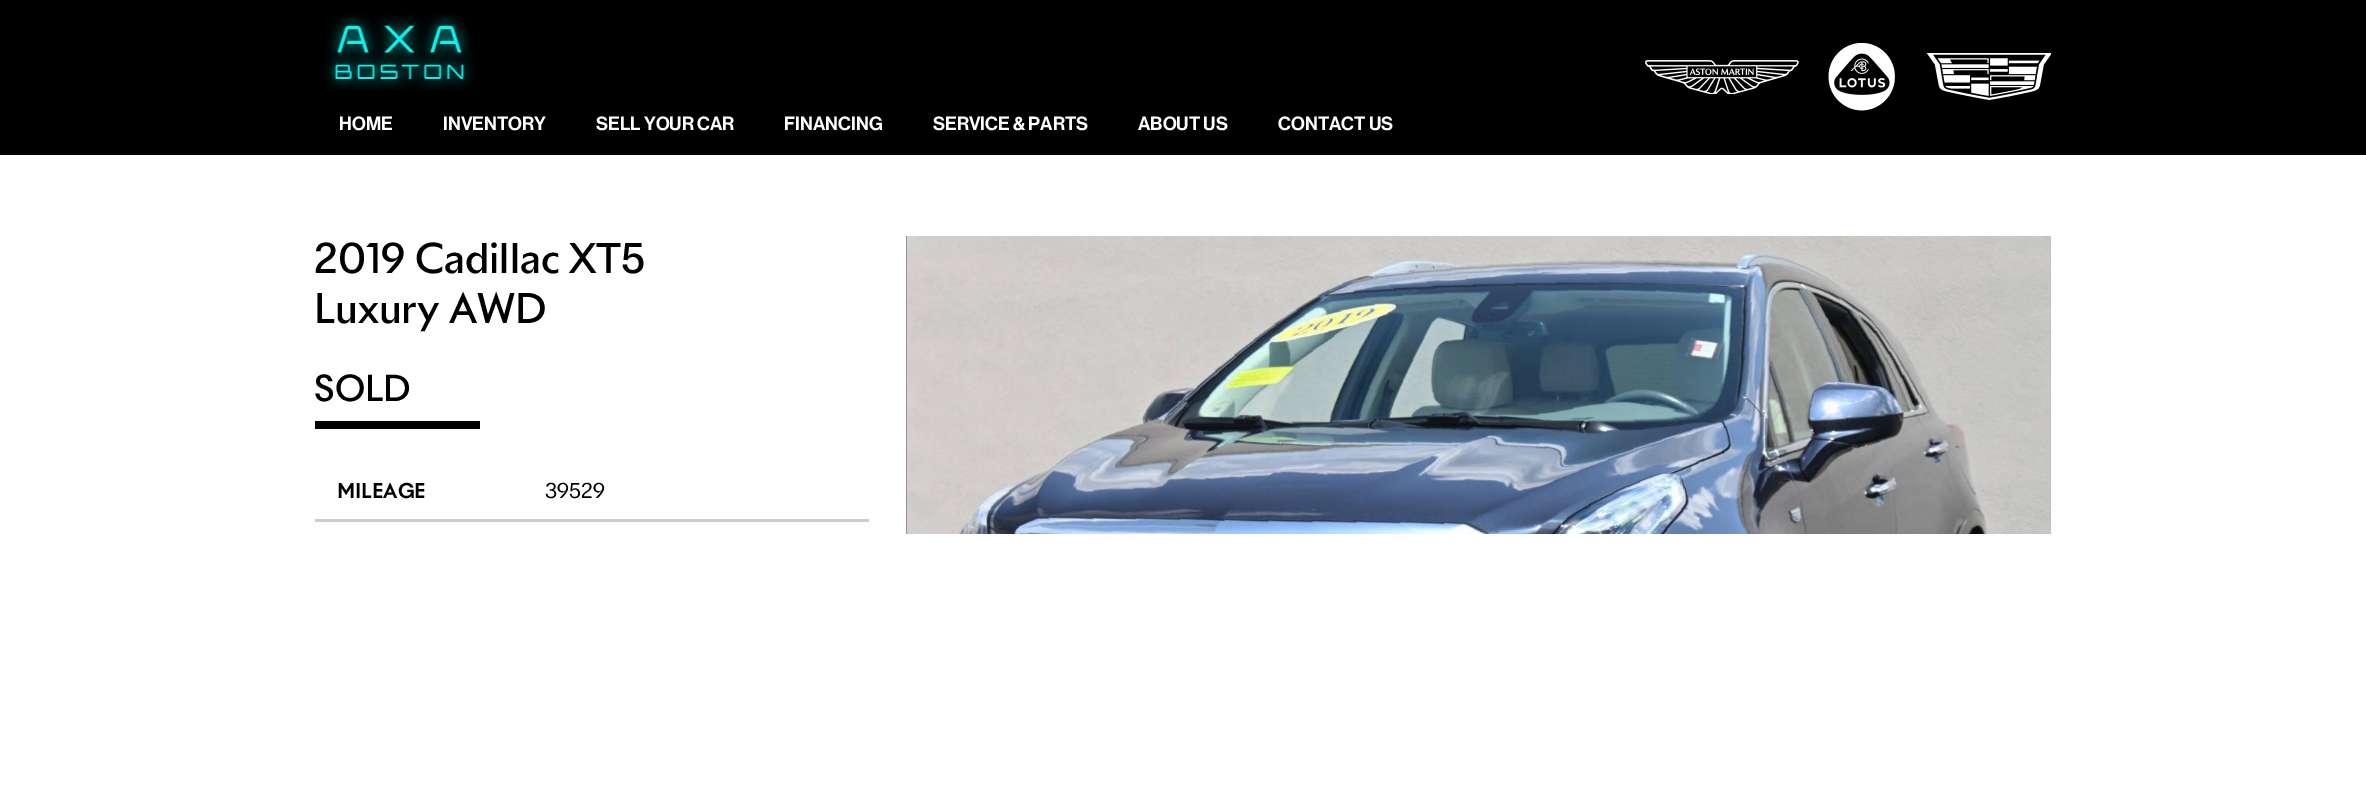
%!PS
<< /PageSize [2366 799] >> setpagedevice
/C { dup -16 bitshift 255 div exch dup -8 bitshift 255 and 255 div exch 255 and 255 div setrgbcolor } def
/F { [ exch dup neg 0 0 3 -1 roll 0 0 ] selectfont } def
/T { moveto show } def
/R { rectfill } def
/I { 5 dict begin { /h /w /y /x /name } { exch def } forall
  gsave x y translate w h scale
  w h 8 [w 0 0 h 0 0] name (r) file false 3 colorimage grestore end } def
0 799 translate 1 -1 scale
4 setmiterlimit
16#FFFFFF C
0 0 2366 799 R
16#000000 C
0 0 2366 155 R
(1.rgb) 1645 60 154 34 I
(2.rgb) 1828 43 67 68 I
(3.rgb) 1926 53 125 47 I
(4.rgb) 325 14 149 76 I
/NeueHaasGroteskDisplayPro-SemiBold 18.75 F
16#FFFFFF C
(HOME) 339 130 T
(INVENTORY) 443 130 T
(SELL YOUR CAR) 596 130 T
(FINANCING) 784 130 T
(SERVICE & PARTS) 933 130 T
(ABOUT US) 1138 130 T
(CONTACT US) 1278 130 T
/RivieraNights-Medium 40 F
16#000000 C
(2019 Cadillac XT5) 314 273 T
(Luxury AWD) 314 323 T
/RivieraNights-Medium 35 F
(SOLD) 314 401 T
315 421 165 8 R
16#CCCCCC C
315 519 554 3 R
/RivieraNights-Bold 20 F
16#000000 C
(MILEAGE) 337 498 T
/RivieraNights-Regular 20 F
(39529) 545 498 T
16#292929 C
906 236 1145 298 R
(5.rgb) 906 236 1145 298 I
showpage
